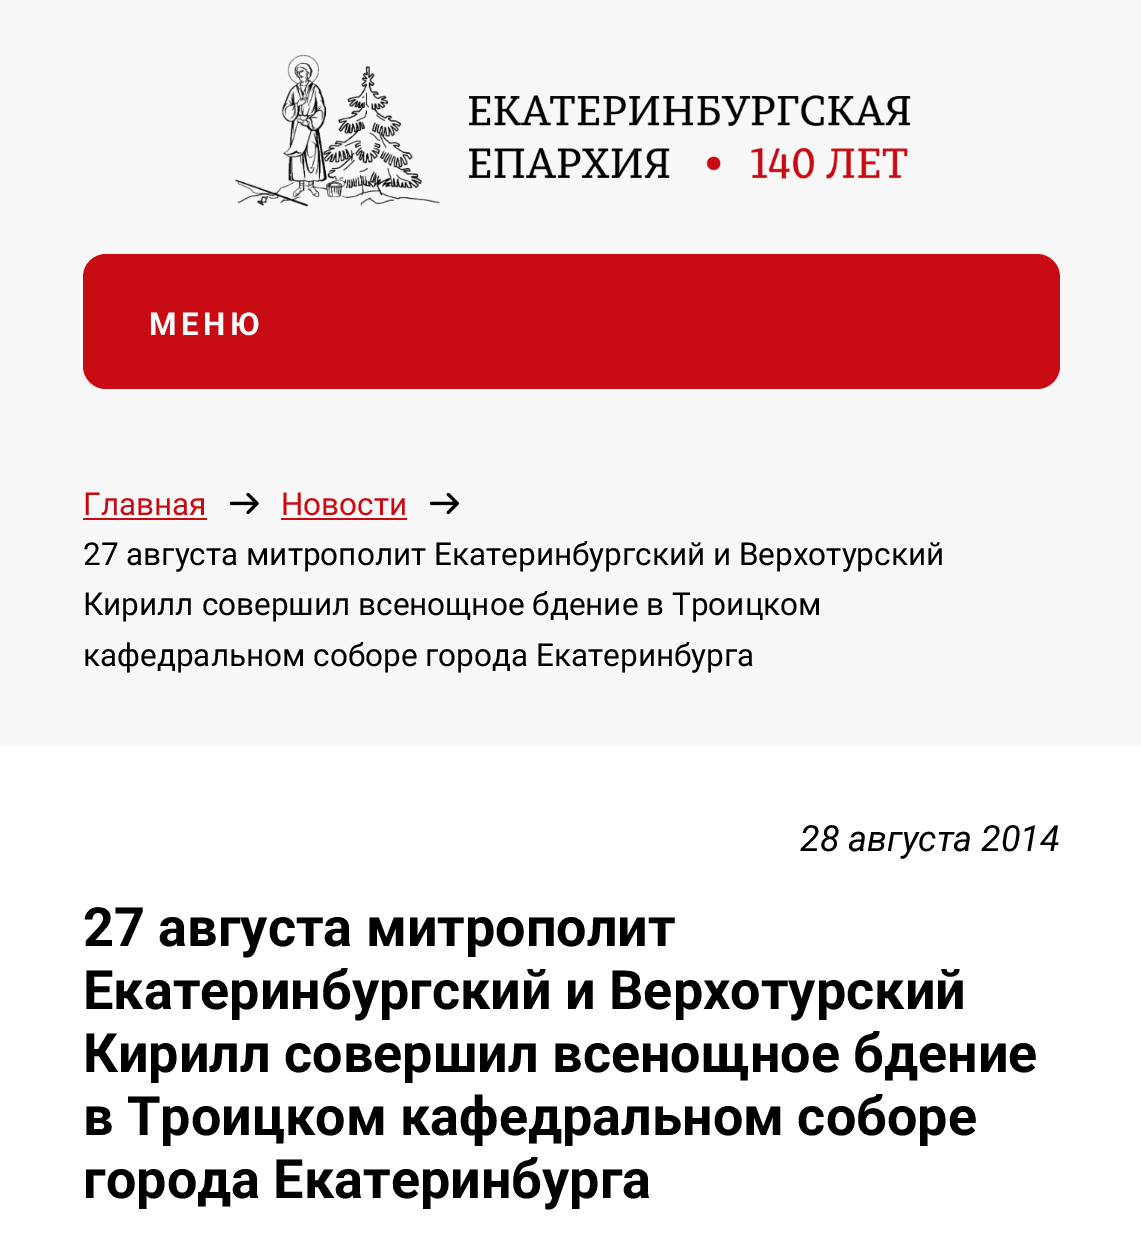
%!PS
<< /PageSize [1141 1243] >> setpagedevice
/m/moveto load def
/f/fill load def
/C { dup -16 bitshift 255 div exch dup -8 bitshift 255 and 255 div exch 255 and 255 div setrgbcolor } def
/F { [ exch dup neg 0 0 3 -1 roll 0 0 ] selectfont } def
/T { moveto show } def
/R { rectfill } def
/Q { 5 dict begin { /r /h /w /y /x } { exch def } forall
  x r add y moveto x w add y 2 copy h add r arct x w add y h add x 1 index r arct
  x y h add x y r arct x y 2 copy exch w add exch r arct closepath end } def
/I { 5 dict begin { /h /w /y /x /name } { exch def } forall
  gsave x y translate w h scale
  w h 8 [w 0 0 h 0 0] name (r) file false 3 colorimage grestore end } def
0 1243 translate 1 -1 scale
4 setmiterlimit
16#F8F8F8 C
0 0 1141 1243 R
(1.rgb) 235 54 676 153 I
16#C80B13 C
83 254 977 135 23 Q f
/Roboto-Bold 31.5 F
16#FFFFFF C
149 335 m 4.5 0 (МЕНЮ) ashow
/Roboto-Regular 31.5 F
16#C80B13 C
(Главная) 83 515 T
83 518 124 2 R
(2.rgb) 230 493 29 22 I
(Новости) 281 515 T
281 518 126 2 R
(3.rgb) 430 493 29 22 I
16#000000 C
(27 августа митрополит Екатеринбургский и Верхотурский) 83 565 T
(Кирилл совершил всенощное бдение в Троицком) 83 615 T
(кафедральном соборе города Екатеринбурга) 83 666 T
16#FFFFFF C
0 747 1141 496 R
/Roboto-Italic 36 F
16#000000 C
(28 августа 2014) 800 851 T
/Roboto-Bold 54 F
(27 августа митрополит) 83 946 T
(Екатеринбургский и Верхотурский) 83 1009 T
(Кирилл совершил всенощное бдение) 83 1072 T
(в Троицком кафедральном соборе) 83 1135 T
(города Екатеринбурга) 83 1198 T
showpage
